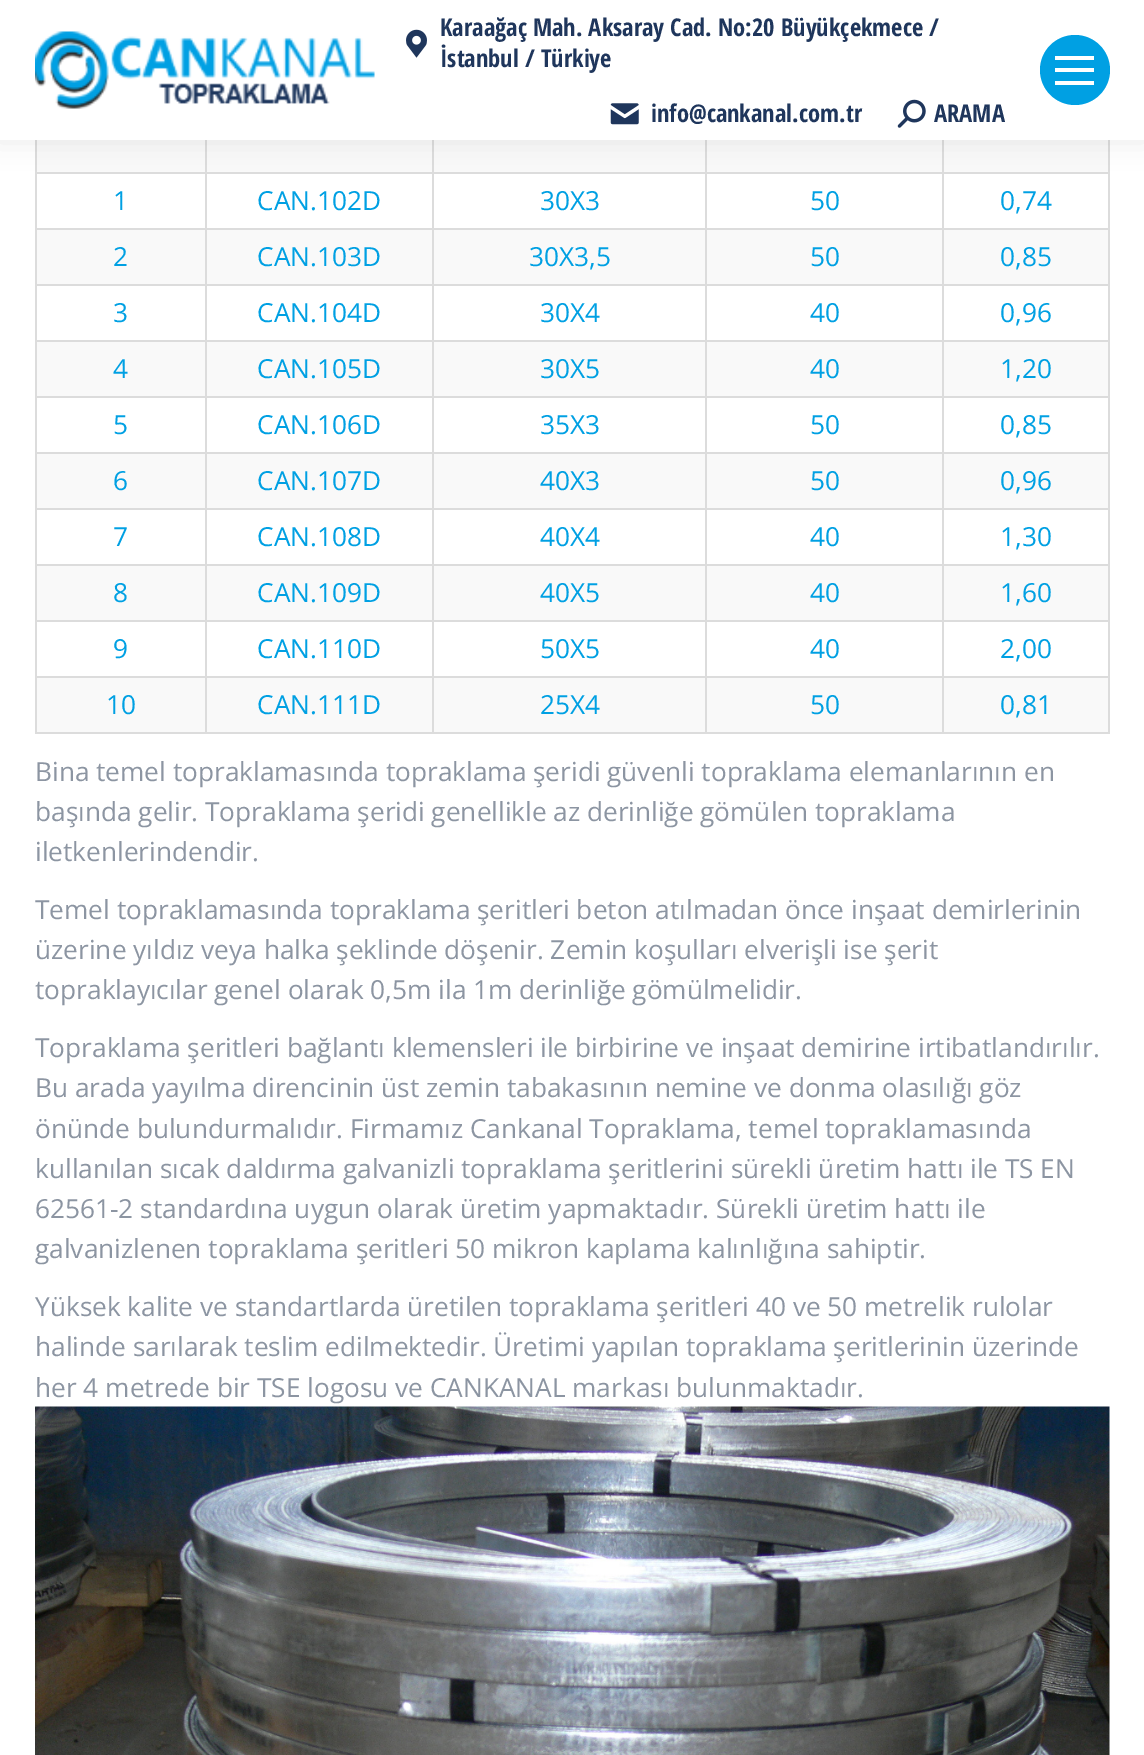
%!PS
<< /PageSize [1144 1755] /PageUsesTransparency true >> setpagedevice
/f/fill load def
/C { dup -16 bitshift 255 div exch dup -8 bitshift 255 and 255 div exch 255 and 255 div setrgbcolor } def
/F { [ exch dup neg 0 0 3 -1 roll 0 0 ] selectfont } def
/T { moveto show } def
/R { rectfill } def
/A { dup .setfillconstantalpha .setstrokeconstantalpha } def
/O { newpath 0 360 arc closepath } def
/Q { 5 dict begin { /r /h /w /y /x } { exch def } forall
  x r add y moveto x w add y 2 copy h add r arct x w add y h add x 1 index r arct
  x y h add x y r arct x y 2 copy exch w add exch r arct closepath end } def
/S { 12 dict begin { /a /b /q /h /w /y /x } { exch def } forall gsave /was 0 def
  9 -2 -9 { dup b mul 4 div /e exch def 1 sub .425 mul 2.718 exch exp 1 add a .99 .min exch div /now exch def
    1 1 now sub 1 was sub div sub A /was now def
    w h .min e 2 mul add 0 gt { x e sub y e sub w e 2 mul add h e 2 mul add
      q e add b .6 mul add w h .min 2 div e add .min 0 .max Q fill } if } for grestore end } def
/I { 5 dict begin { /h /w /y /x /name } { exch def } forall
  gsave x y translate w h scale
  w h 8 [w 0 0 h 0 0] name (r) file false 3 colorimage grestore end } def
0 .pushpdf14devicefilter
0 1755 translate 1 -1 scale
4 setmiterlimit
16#FFFFFF C
0 0 1144 1755 R
16#F9F9F9 C
37 140 1071 32 R
37 230 1071 54 R
37 342 1071 54 R
37 454 1071 54 R
37 566 1071 54 R
16#DCDCDC C
1108 140 2 593 R
16#F9F9F9 C
37 678 1071 54 R
16#DCDCDC C
942 732 168 2 R
942 676 2 57 R
942 676 168 2 R
942 620 2 57 R
942 620 168 2 R
942 564 2 57 R
942 564 168 2 R
942 508 2 57 R
942 508 168 2 R
942 452 2 57 R
942 452 168 2 R
942 396 2 57 R
942 396 168 2 R
942 340 2 57 R
942 340 168 2 R
942 284 2 57 R
942 284 168 2 R
942 228 2 57 R
942 228 168 2 R
942 172 2 57 R
942 172 168 2 R
942 140 2 33 R
705 732 238 2 R
705 676 2 57 R
705 676 238 2 R
705 620 2 57 R
705 620 238 2 R
705 564 2 57 R
705 564 238 2 R
705 508 2 57 R
705 508 238 2 R
705 452 2 57 R
705 452 238 2 R
705 396 2 57 R
705 396 238 2 R
705 340 2 57 R
705 340 238 2 R
705 284 2 57 R
705 284 238 2 R
705 228 2 57 R
705 228 238 2 R
705 172 2 57 R
705 172 238 2 R
705 140 2 33 R
432 732 275 2 R
432 676 2 57 R
432 676 275 2 R
432 620 2 57 R
432 620 275 2 R
432 564 2 57 R
432 564 275 2 R
432 508 2 57 R
432 508 275 2 R
432 452 2 57 R
432 452 275 2 R
432 396 2 57 R
432 396 275 2 R
432 340 2 57 R
432 340 275 2 R
432 284 2 57 R
432 284 275 2 R
432 228 2 57 R
432 228 275 2 R
432 172 2 57 R
432 172 275 2 R
432 140 2 33 R
205 732 229 2 R
205 676 2 57 R
205 676 229 2 R
205 620 2 57 R
205 620 229 2 R
205 564 2 57 R
205 564 229 2 R
205 508 2 57 R
205 508 229 2 R
205 452 2 57 R
205 452 229 2 R
205 396 2 57 R
205 396 229 2 R
205 340 2 57 R
205 340 229 2 R
205 284 2 57 R
205 284 229 2 R
205 228 2 57 R
205 228 229 2 R
205 172 2 57 R
205 172 229 2 R
205 140 2 33 R
35 732 172 2 R
35 676 2 57 R
35 676 172 2 R
35 620 2 57 R
35 620 172 2 R
35 564 2 57 R
35 564 172 2 R
35 508 2 57 R
35 508 172 2 R
35 452 2 57 R
35 452 172 2 R
35 396 2 57 R
35 396 172 2 R
35 340 2 57 R
35 340 172 2 R
35 284 2 57 R
35 284 172 2 R
35 228 2 57 R
35 228 172 2 R
35 172 2 57 R
35 172 172 2 R
35 140 2 33 R
16#000000 C
-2 -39 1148 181 0 13 .07 S
16#FFFFFF C
0 0 1144 140 R
(1.rgb) 35 31 340 78 I
(2.rgb) 406 29 21 29 I
/OpenSansCondensed-Bold 24.5 F
16#1F365C C
(Karaağaç Mah. Aksaray Cad. No:20 Büyükçekmece /) 440 36 T
(İstanbul / Türkiye) 440 67 T
(3.rgb) 610 103 29 22 I
(info@cankanal.com.tr) 651 122 T
(4.rgb) 897 99 29 29 I
(ARAMA) 934 122 T
16#00A0E3 C
1075 70 35 O f
16#FFFFFF C
1055 56 39 4 R
1055 68 39 4 R
1055 81 39 4 R
/OpenSans-Regular 26.25 F
16#00A0E3 C
(1) 113 210 T
(CAN.102D) 257 210 T
(30X3) 540 210 T
(50) 810 210 T
(0,74) 1000 210 T
(2) 113 266 T
(CAN.103D) 257 266 T
(30X3,5) 529 266 T
(50) 810 266 T
(0,85) 1000 266 T
(3) 113 322 T
(CAN.104D) 257 322 T
(30X4) 540 322 T
(40) 810 322 T
(0,96) 1000 322 T
(4) 113 378 T
(CAN.105D) 257 378 T
(30X5) 540 378 T
(40) 810 378 T
(1,20) 1000 378 T
(5) 113 434 T
(CAN.106D) 257 434 T
(35X3) 540 434 T
(50) 810 434 T
(0,85) 1000 434 T
(6) 113 490 T
(CAN.107D) 257 490 T
(40X3) 540 490 T
(50) 810 490 T
(0,96) 1000 490 T
(7) 113 546 T
(CAN.108D) 257 546 T
(40X4) 540 546 T
(40) 810 546 T
(1,30) 1000 546 T
(8) 113 602 T
(CAN.109D) 257 602 T
(40X5) 540 602 T
(40) 810 602 T
(1,60) 1000 602 T
(9) 113 658 T
(CAN.110D) 257 658 T
(50X5) 540 658 T
(40) 810 658 T
(2,00) 1000 658 T
(10) 106 714 T
(CAN.111D) 257 714 T
(25X4) 540 714 T
(50) 810 714 T
(0,81) 1000 714 T
16#8C95A2 C
(Bina temel topraklamasında topraklama şeridi güvenli topraklama elemanlarının en) 35 781 T
(başında gelir. Topraklama şeridi genellikle az derinliğe gömülen topraklama) 35 821 T
(iletkenlerindendir.) 35 861 T
(Temel topraklamasında topraklama şeritleri beton atılmadan önce inşaat demirlerinin) 35 919 T
(üzerine yıldız veya halka şeklinde döşenir. Zemin koşulları elverişli ise şerit) 35 959 T
(topraklayıcılar genel olarak 0,5m ila 1m derinliğe gömülmelidir.) 35 999 T
(Topraklama şeritleri bağlantı klemensleri ile birbirine ve inşaat demirine irtibatlandırılır.) 35 1057 T
(Bu arada yayılma direncinin üst zemin tabakasının nemine ve donma olasılığı göz) 35 1097 T
(önünde bulundurmalıdır. Firmamız Cankanal Topraklama, temel topraklamasında) 35 1138 T
(kullanılan sıcak daldırma galvanizli topraklama şeritlerini sürekli üretim hattı ile TS EN) 35 1178 T
(62561-2 standardına uygun olarak üretim yapmaktadır. Sürekli üretim hattı ile) 35 1218 T
(galvanizlenen topraklama şeritleri 50 mikron kaplama kalınlığına sahiptir.) 35 1258 T
(Yüksek kalite ve standartlarda üretilen topraklama şeritleri 40 ve 50 metrelik rulolar) 35 1316 T
(halinde sarılarak teslim edilmektedir. Üretimi yapılan topraklama şeritlerinin üzerinde) 35 1356 T
(her 4 metrede bir TSE logosu ve CANKANAL markası bulunmaktadır.) 35 1397 T
(5.rgb) 35 1406 1075 349 I
.poppdf14devicefilter showpage
